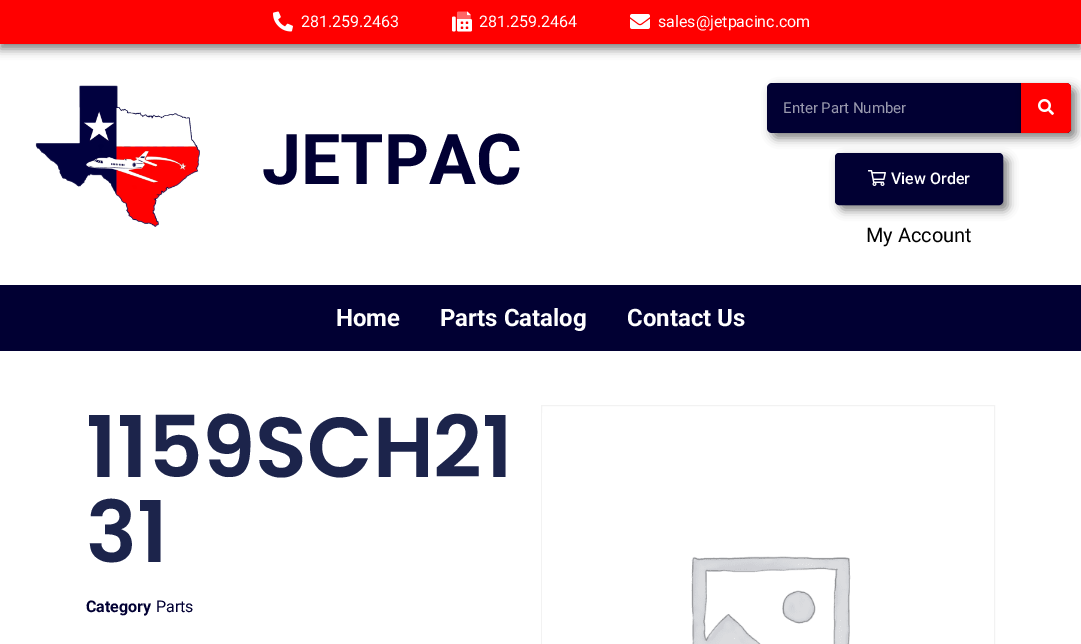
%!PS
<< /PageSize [1081 644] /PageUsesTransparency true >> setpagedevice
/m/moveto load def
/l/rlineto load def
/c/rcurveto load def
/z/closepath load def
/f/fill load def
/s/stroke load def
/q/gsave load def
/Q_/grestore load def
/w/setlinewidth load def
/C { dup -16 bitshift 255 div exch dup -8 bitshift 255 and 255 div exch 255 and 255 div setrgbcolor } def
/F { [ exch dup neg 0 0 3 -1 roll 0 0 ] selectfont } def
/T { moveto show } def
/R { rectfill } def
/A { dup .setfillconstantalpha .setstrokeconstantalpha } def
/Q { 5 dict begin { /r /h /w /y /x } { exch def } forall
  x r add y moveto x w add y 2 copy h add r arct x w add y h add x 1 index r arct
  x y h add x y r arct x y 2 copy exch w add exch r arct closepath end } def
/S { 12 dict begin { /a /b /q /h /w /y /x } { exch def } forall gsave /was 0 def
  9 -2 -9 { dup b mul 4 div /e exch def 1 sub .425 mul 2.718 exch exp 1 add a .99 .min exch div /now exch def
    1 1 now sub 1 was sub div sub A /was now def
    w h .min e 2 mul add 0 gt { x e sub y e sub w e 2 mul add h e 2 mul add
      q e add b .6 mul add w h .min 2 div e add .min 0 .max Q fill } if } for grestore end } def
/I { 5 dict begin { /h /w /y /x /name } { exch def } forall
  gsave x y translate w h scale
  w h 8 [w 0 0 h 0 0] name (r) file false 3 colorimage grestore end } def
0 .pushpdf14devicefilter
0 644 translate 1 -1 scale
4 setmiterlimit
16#FFFFFF C
0 0 1081 644 R
16#000000 C
0 5 1081 44 0 5 .5 S
16#FF0000 C
0 0 1081 44 R
(1.rgb) 273 11 20 21 I
/Roboto-Regular 16 F
16#FFFFFF C
(281.259.2463) 301 27 T
(2.rgb) 452 11 20 21 I
(3.rgb) 457 11 14 8 I
(281.259.2464) 479 27 T
(4.rgb) 630 14 20 15 I
(sales@jetpacinc.com) 658 27 T
(5.rgb) 35 85 165 142 I
/Roboto-Bold 70 F
16#010033 C
(JETPAC) 262 184 T
16#000000 C
772 88 304 50 5 5 .5 S
16#010033 C
767 83 304 50 5 Q f
/Roboto-Regular 15 F
16#9999AD C
(Enter Part Number) 783 113 T
q
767 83 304 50 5 Q clip newpath
16#000000 C
1026 88 50 50 0 5 .5 S
Q_
16#FF0000 C
1021 83 m 45 0 l 3 0 5 2 5 5 c 0 40 l 0 3 -2 5 -5 5 c -45 0 l z f
(6.rgb) 1038 99 16 16 I
16#000000 C
840 158 168 52 4 5 .5 S
16#010033 C
836.5 154.5 165 49 2.5 Q q f Q_
3 w
s
(7.rgb) 868 170 18 16 I
/Roboto-Medium 16 F
16#FFFFFF C
(View Order) 891 184 T
/Roboto-Regular 20 F
16#000000 C
(My Account) 866 242 T
16#010033 C
0 285 1081 66 R
/Roboto-Bold 24 F
16#FFFFFF C
(Home) 336 326 T
(Parts Catalog) 440 326 T
(Contact Us) 627 326 T
/Poppins-SemiBold 85 F
16#1C244B C
(1159SCH21) 86 477 T
(31) 86 562 T
/Roboto-Bold 16 F
16#010033 C
(Category) 86 612 T
/Roboto-Regular 16 F
(Parts) 156 612 T
16#F2F2F2 C
1 w
541.5 405.5 453 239 rectstroke
(8.rgb) 542 413 309 231 I
.poppdf14devicefilter showpage
